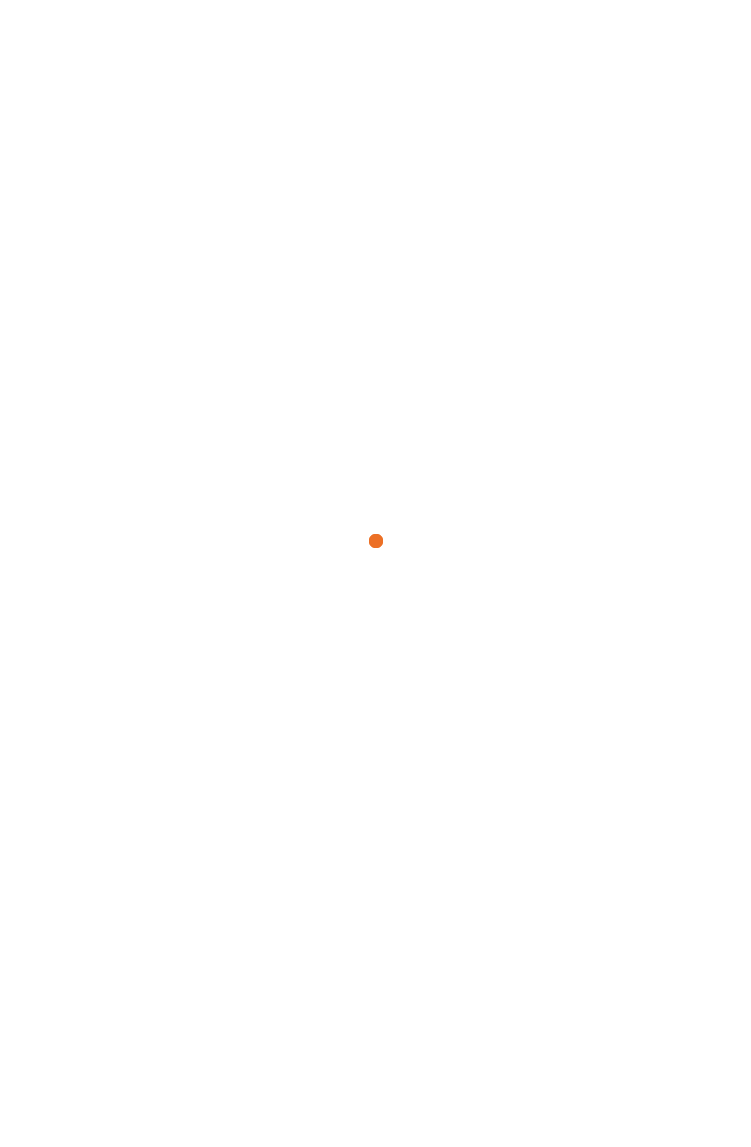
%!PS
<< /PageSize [751 1147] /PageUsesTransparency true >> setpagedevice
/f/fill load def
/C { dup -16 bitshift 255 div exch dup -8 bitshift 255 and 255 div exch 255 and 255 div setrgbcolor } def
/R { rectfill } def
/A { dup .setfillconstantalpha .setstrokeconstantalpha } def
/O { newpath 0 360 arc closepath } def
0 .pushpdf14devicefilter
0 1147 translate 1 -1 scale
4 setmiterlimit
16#FFFFFF C
0 0 751 1147 R
16#EC7026 C
376 541 7 O f
0.7 A
376 541 7 O f
0.42 A
376 541 7 O f
.poppdf14devicefilter showpage
